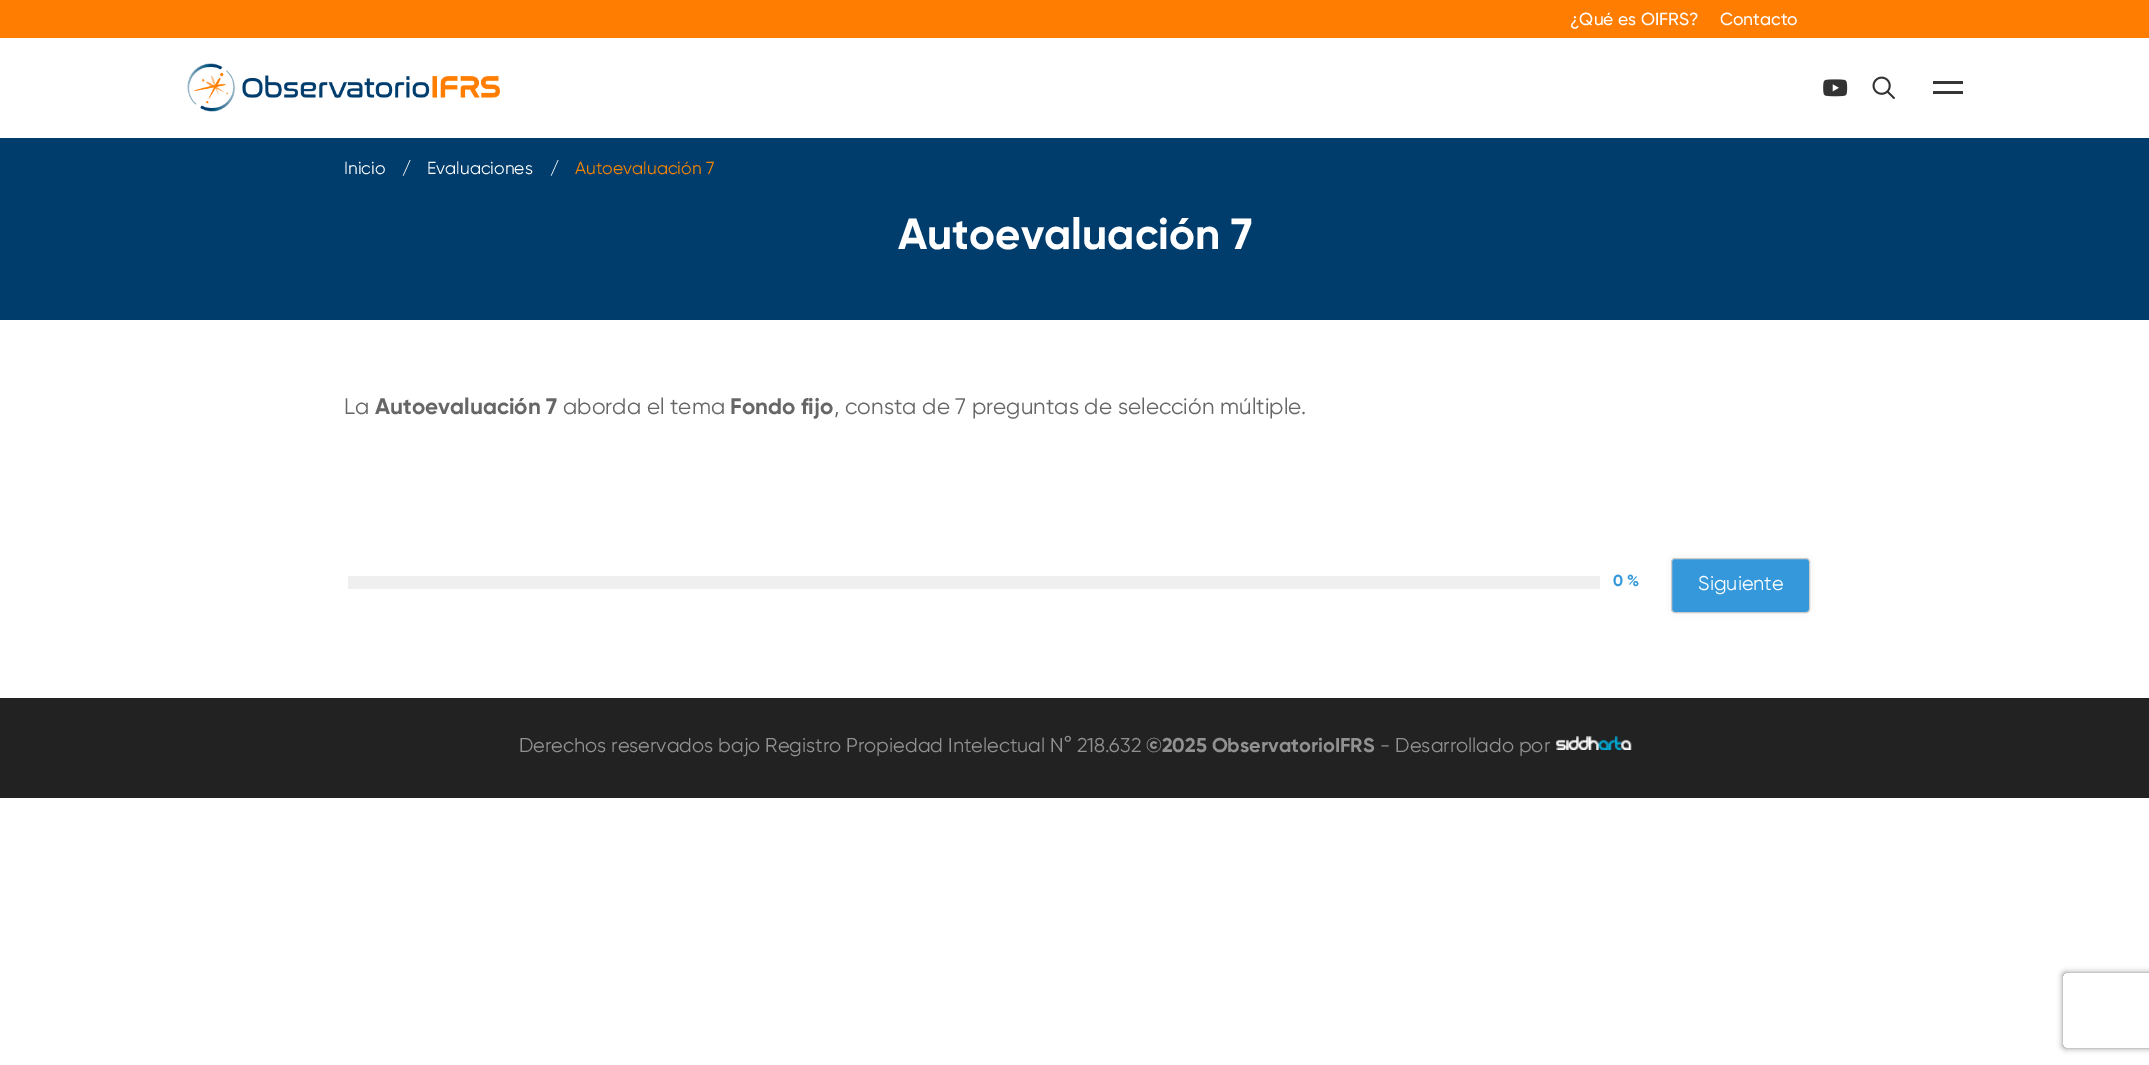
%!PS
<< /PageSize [2149 1065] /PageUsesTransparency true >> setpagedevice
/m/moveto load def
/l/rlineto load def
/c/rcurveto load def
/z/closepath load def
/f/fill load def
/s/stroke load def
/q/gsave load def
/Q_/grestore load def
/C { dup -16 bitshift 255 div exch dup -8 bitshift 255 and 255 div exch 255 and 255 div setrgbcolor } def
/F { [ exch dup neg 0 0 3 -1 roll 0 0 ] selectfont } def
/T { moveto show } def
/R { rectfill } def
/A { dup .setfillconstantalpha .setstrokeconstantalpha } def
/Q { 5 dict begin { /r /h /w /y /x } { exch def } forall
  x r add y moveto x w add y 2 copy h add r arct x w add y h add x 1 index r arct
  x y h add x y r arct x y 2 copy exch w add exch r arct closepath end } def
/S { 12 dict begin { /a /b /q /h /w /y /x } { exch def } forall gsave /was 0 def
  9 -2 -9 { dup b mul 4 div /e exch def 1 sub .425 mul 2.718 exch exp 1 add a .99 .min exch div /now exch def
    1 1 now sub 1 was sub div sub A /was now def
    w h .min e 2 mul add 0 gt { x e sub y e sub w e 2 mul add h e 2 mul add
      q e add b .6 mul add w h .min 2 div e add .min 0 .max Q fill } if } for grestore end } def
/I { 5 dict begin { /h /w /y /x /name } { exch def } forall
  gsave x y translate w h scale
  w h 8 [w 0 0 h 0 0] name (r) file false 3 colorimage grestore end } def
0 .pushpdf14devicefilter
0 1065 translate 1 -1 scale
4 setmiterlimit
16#FFFFFF C
0 0 2149 1065 R
16#FF7D00 C
0 0 2149 38 R
/Gilroy-Medium 17.5 F
16#FFFFFF C
(¿Qué es OIFRS?) 1570 25 T
(Contacto) 1720 25 T
(1.rgb) 187 63 313 49 I
(2.rgb) 1823 79 25 18 I
(3.rgb) 1872 76 23 23 I
16#353535 C
1933 81 30 3 R
1933 91 30 3 R
16#003D6D C
0 138 2149 182 R
/Gilroy-Regular 17.5 F
16#FFFFFF C
(Inicio) 344 174 T
(/) 402 174 T
(Evaluaciones) 427 174 T
(/) 550 174 T
16#F88400 C
(Autoevaluación 7) 575 174 T
/Gilroy-Bold 43.75 F
16#FFFFFF C
(Autoevaluación 7) 898 249 T
/Gilroy-Regular 22.5 F
16#666666 C
(La) 344 414 T
/Gilroy-Bold 22.5 F
(Autoevaluación 7) 375 414 T
/Gilroy-Regular 22.5 F
(aborda el tema) 563 414 T
/Gilroy-Bold 22.5 F
(Fondo fijo) 730 414 T
/Gilroy-Regular 22.5 F
(, consta de 7 preguntas de selección múltiple.) 834 414 T
16#EFEFEF C
348 576 1252 13 R
/Gilroy-Bold 16 F
16#3498DB C
(0 %) 1613 586 T
16#000000 C
1671 558 139 55 4 4 .05 S
16#3498DB C
1671.5 558.5 138 54 3.5 Q q f Q_
16#CCCCCC C
s
/Gilroy-Regular 20 F
16#FFFFFF C
(Siguiente) 1698 590 T
16#222222 C
0 698 2149 100 R
16#919191 C
(Derechos reservados bajo Registro Propiedad Intelectual N° 218.632) 519 752 T
/Gilroy-Bold 20 F
(©2025 ObservatorioIFRS) 1146 752 T
/Gilroy-Regular 20 F
(- Desarrollado por) 1380 752 T
(4.rgb) 1555 736 77 14 I
q
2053 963 m 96 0 l 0 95 l -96 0 l z 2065.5 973 m 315 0 l 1.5 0 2.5 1 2.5 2.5 c 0 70 l 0 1.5 -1 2.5 -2.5 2.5 c -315 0 l -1.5 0 -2.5 -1 -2.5 -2.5 c 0 -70 l 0 -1.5 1 -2.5 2.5 -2.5 c z eoclip newpath
16#808080 C
2063 973 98 75 2.5 3 1 S
Q_
.poppdf14devicefilter showpage
